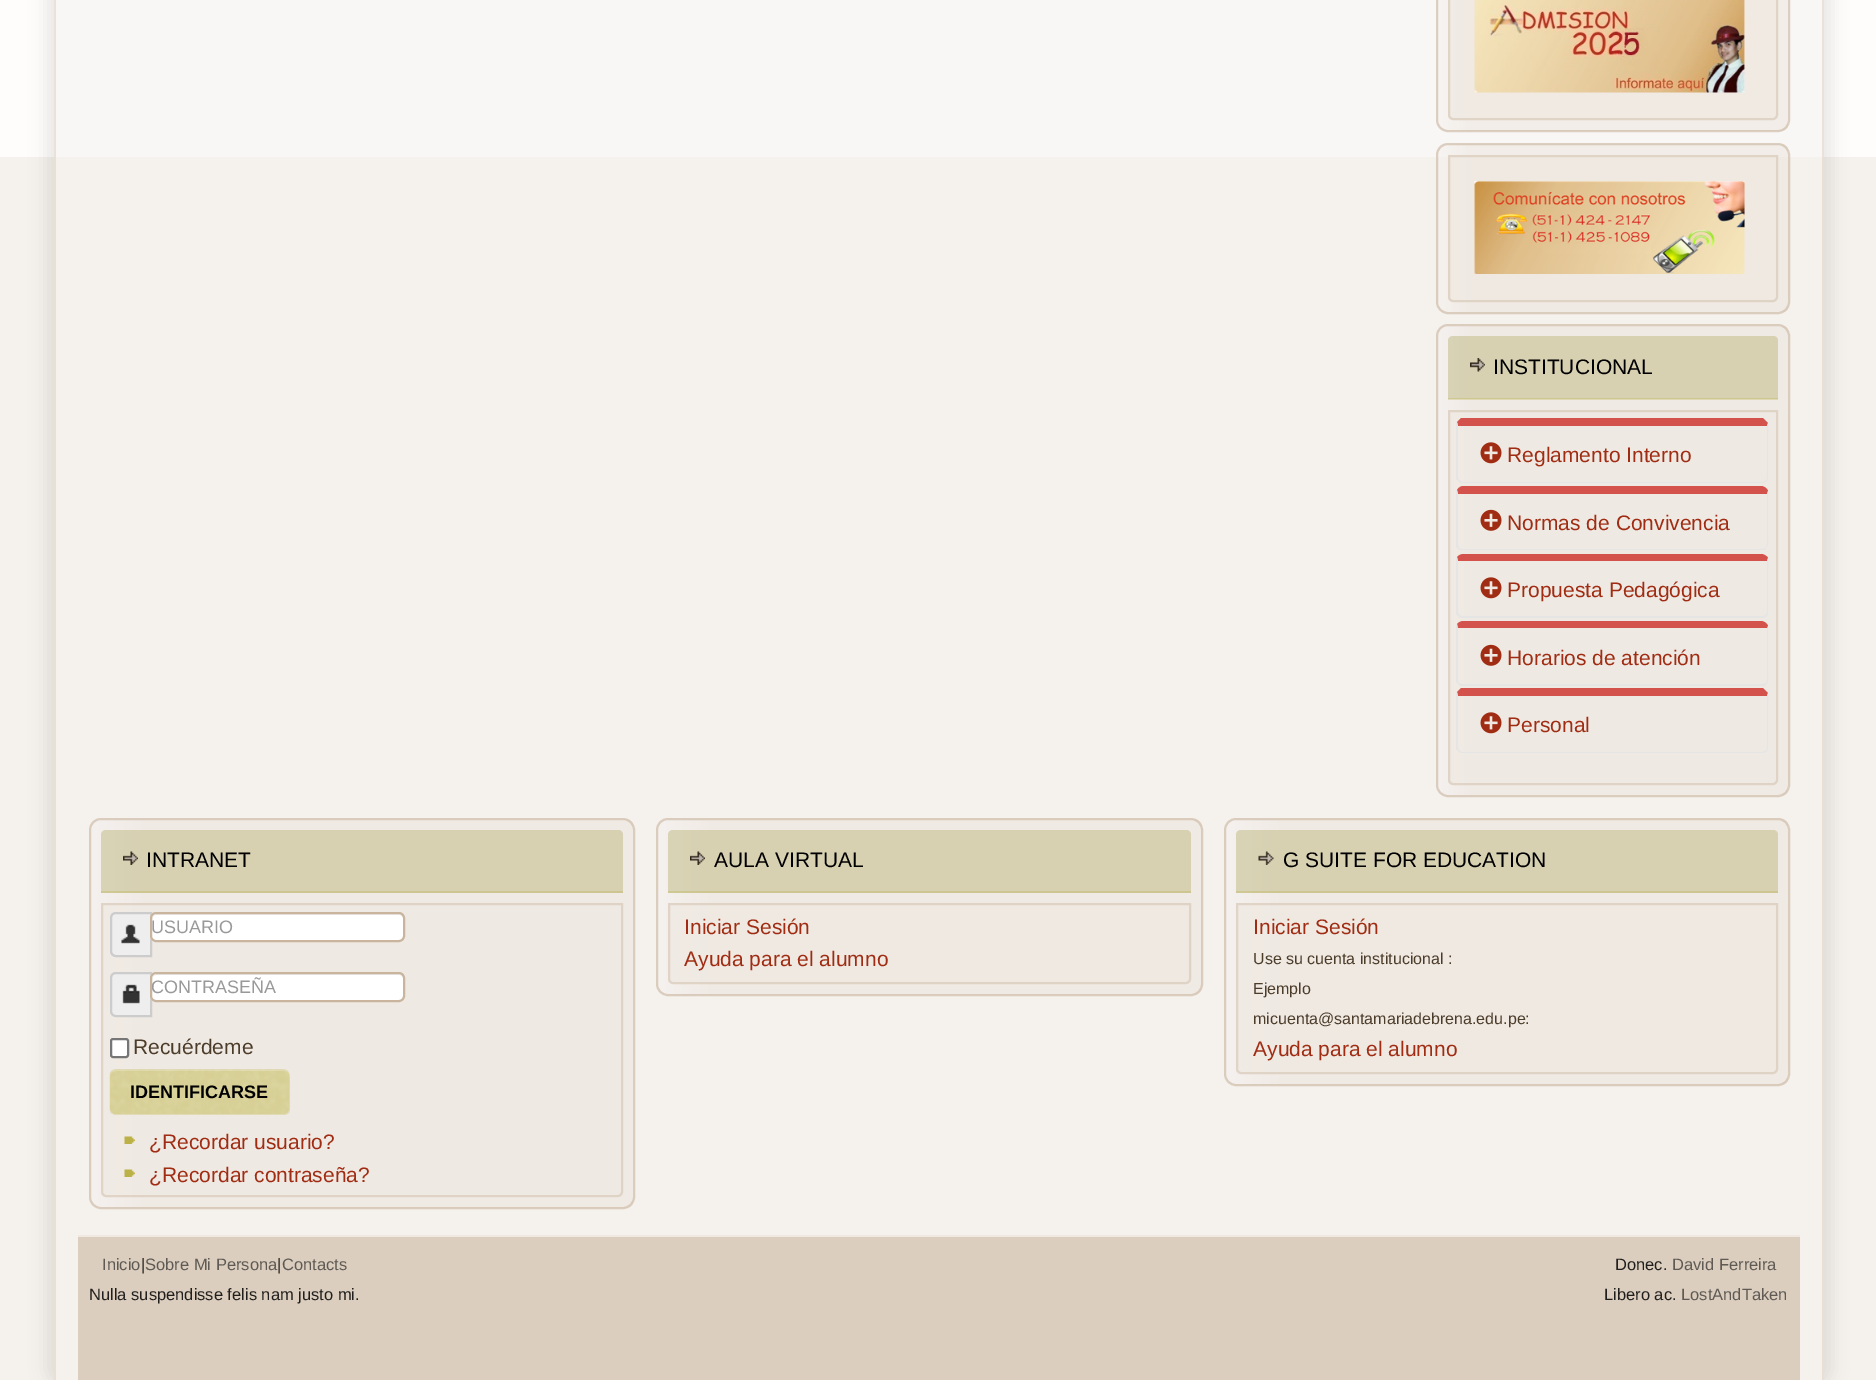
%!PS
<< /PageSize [1876 1380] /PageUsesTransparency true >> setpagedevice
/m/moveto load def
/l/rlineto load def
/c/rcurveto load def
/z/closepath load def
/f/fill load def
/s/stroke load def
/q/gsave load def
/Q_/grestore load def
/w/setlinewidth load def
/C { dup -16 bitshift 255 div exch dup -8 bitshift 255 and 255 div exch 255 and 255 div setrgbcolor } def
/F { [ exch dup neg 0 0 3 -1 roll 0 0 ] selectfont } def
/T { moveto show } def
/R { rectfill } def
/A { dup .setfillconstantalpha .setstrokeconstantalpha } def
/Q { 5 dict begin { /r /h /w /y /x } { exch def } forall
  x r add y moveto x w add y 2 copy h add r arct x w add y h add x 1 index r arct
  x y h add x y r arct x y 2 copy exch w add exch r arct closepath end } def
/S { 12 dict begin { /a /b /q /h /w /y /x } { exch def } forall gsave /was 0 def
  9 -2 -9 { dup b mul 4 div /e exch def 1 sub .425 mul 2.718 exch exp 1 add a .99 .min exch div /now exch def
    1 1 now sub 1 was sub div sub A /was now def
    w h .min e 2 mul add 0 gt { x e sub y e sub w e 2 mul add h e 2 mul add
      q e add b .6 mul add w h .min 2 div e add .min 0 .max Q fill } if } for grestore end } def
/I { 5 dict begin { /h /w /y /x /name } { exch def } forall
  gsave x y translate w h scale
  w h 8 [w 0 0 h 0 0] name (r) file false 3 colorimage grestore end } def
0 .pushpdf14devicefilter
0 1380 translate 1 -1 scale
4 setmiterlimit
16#F5F1ED C
0 0 1876 1380 R
16#FFFDFC C
0 0 1876 157 R
16#F9F7F6 C
54 0 1770 157 R
q
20 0 m 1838 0 l 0 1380 l -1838 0 l z 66 -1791 m 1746 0 l 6.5 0 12 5.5 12 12 c 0 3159 l -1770 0 l 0 -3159 l 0 -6.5 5.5 -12 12 -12 c z eoclip newpath
16#000000 C
45 -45 1788 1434 21 8 .07 S
Q_
0.5 A
16#DBCEBE C
66 -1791 m 1746 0 l 7 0 12 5 12 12 c 0 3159 l -1770 0 l 0 -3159 l 0 -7 5 -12 12 -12 c z 66 -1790 m 1746 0 l 6 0 10 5 10 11 c 0 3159 l -1766 0 l 0 -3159 l 0 -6 4 -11 10 -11 c z eofill
q
1436 -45 354 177 12 Q clip newpath
1 A
q 1437 0 m 351 0 l 0 131 l -351 0 l z clip newpath
<< /ShadingType 2 /ColorSpace /DeviceRGB /Coords [1437 44 1788 43] /Extend [true true] /Function << /FunctionType 3 /Domain [0 1] /Functions [<< /FunctionType 2 /Domain [0 1] /C0 [.969 .957 .949] /C1 [.949 .929 .91] /N 1 >> << /FunctionType 2 /Domain [0 1] /C0 [.949 .929 .91] /C1 [.949 .929 .91] /N 1 >>] /Bounds [.1] /Encode [0 1 0 1] >> >> shfill Q_
Q_
0.6 A
16#C9B59E C
2 w
1437 -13 352 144 11 Q s
0.8 A
16#EFE9E2 C
1448 -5 m 330 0 l 0 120 l 0 3 -2 5 -5 5 c -320 0 l -3 0 -5 -2 -5 -5 c z f
16#DBCEBE C
1449 -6 m 328 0 l 0 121 l 0 2 -2 4 -4 4 c -320 0 l -2 0 -4 -2 -4 -4 c z s
1 A
(1.rgb) 1474 0 271 93 I
q
1436 143 354 171 12 Q clip newpath
0.6 A
q 1437 144 m 351 0 l 0 168 l -351 0 l z clip newpath
<< /ShadingType 2 /ColorSpace /DeviceRGB /Coords [1437 228 1788 228] /Extend [true true] /Function << /FunctionType 3 /Domain [0 1] /Functions [<< /FunctionType 2 /Domain [0 1] /C0 [.965 .949 .937] /C1 [.929 .902 .871] /N 1 >> << /FunctionType 2 /Domain [0 1] /C0 [.929 .902 .871] /C1 [.929 .902 .871] /N 1 >>] /Bounds [.1] /Encode [0 1 0 1] >> >> shfill Q_
Q_
0.6 A
16#C9B59E C
1437 144 352 169 11 Q s
0.8 A
16#EFE9E2 C
1448 155 m 330 0 l 0 142 l 0 3 -2 5 -5 5 c -320 0 l -3 0 -5 -2 -5 -5 c z f
16#DBCEBE C
1449 156 m 328 0 l 0 141 l 0 2 -2 4 -4 4 c -320 0 l -2 0 -4 -2 -4 -4 c z s
1 A
(2.rgb) 1474 181 271 93 I
q
1436 324 354 473 12 Q clip newpath
q 1437 326 m 351 0 l 0 469 l -351 0 l z clip newpath
<< /ShadingType 2 /ColorSpace /DeviceRGB /Coords [1437 560 1788 560] /Extend [true true] /Function << /FunctionType 3 /Domain [0 1] /Functions [<< /FunctionType 2 /Domain [0 1] /C0 [.961 .945 .937] /C1 [.941 .918 .898] /N 1 >> << /FunctionType 2 /Domain [0 1] /C0 [.941 .918 .898] /C1 [.941 .918 .898] /N 1 >>] /Bounds [.1] /Encode [0 1 0 1] >> >> shfill Q_
Q_
0.6 A
16#C9B59E C
1437 325 352 471 11 Q s
0.3 A
16#9C933A C
1453 336 m 320 0 l 3 0 5 2 5 5 c 0 58 l -330 0 l 0 -58 l 0 -3 2 -5 5 -5 c z f
16#B8AF44 C
1448 398 330 2 R
1 A
(3.rgb) 1470 358 15 14 I
/LiberationSans-Regular 21 F
16#000000 C
(INSTITUCIONAL) 1493 374 T
0.8 A
16#EFE9E2 C
1448 410 m 330 0 l 0 370 l 0 3 -2 5 -5 5 c -320 0 l -3 0 -5 -2 -5 -5 c z f
16#DBCEBE C
1449 411 m 328 0 l 0 369 l 0 2 -2 4 -4 4 c -320 0 l -2 0 -4 -2 -4 -4 c z s
1 A
16#D3534C C
1457 422 m 1 -1 3 -3 4 -4 c 302 0 l 3 3 l 2 2 l -1 3 l -309 0 l z f
16#E5E5E5 C
1768 423 m 1 4 0 9 0 11 c 0 44 l -1 3 l -1 -1 l 1 -1 1 -2 1 -3 c 0 -51 l z f
1462 483 m 300 0 l 2 0 4 -1 5 -2 c -1 -1 l -1 1 -2 2 -4 2 c -300 0 l -1 0 -2 -1 -3 -2 c -1 1 l 1 1 3 2 4 2 c z f
1456 423 m 1 -1 l 1 4 l 0 51 l 0 1 0 2 1 3 c -1 1 l -2 -2 l z f
(4.rgb) 1480 442 22 22 I
16#A02D13 C
(Reglamento Interno) 1507 462 T
16#D3534C C
1464 486 m -3 0 -5 1 -7 4 c 1 4 l 309 0 l 1 -3 l -1 -3 -4 -5 -7 -5 c z f
16#E5E5E5 C
1768 491 m 0 45 l 0 2 1 10 -2 12 c 0 -1 1 -2 1 -4 c 0 -50 l z f
1766 548 m 0 2 -2 2 -4 2 c -300 0 l -1 0 -3 0 -4 -1 c 1 -1 l 1 1 2 1 3 1 c 300 0 l 2 0 3 -1 4 -1 c z f
1456 491 m 1 -1 l 1 4 l 0 50 l 0 2 1 3 1 4 c -1 1 l -2 -2 l z f
(5.rgb) 1480 509 22 22 I
16#A02D13 C
(Normas de Convivencia) 1507 530 T
16#D3534C C
1464 554 m -3 0 -5 1 -7 3 c 1 4 l 309 0 l 1 -3 l -1 -2 -4 -4 -7 -4 c z f
16#E5E5E5 C
1768 558 m 1 4 0 10 0 12 c 0 43 l -1 3 l -2 -1 l 1 -1 2 -2 2 -3 c 0 -51 l z f
1462 618 m 300 0 l 2 0 4 -1 5 -2 c -2 -1 l 0 1 -2 1 -3 1 c -300 0 l -2 -1 l -2 1 l 1 1 3 2 4 2 c z f
1456 559 m 1 -2 l 1 4 l 0 51 l 0 1 1 2 2 3 c -2 1 l -2 -2 l z f
(4.rgb) 1480 577 22 22 I
16#A02D13 C
(Propuesta Pedagógica) 1507 597 T
16#D3534C C
1464 621 m -3 0 -5 1 -7 3 c 1 5 l 0 -1 l 309 0 l 0 1 l 1 -3 l -1 -3 -4 -5 -7 -5 c z f
16#E5E5E5 C
1768 626 m 0 45 l 0 3 1 10 -1 13 c -1 -1 l 1 -1 1 -2 1 -3 c 0 -51 l z f
1460 686 m -2 -2 l 1 -1 l 3 1 l 301 0 l 3 -1 l 1 1 l -2 2 l z f
1456 626 m 1 -2 l 1 5 l 0 51 l 0 1 0 2 1 3 c -1 1 l -2 -2 l z f
(5.rgb) 1480 644 22 22 I
16#A02D13 C
(Horarios de atención) 1507 665 T
16#D3534C C
1457 692 m 1 -1 3 -3 4 -4 c 302 0 l 3 3 l 2 2 l -1 3 l -309 0 l z f
16#E5E5E5 C
1768 693 m 1 4 0 9 0 11 c 0 44 l -1 3 l -1 -1 l 1 -1 1 -2 1 -3 c 0 -51 l z f
1462 753 m 300 0 l 2 0 4 -1 5 -2 c -1 -1 l -1 1 -2 2 -4 2 c -300 0 l -1 0 -2 -1 -3 -2 c -1 1 l 1 1 3 2 4 2 c z f
1456 693 m 1 -1 l 1 4 l 0 51 l 0 1 0 2 1 3 c -1 1 l -2 -2 l z f
(4.rgb) 1480 712 22 22 I
16#A02D13 C
(Personal) 1507 732 T
q
89 818 546 391 12 Q clip newpath
q 90 819 m 543 0 l 0 389 l -543 0 l z clip newpath
<< /ShadingType 2 /ColorSpace /DeviceRGB /Coords [90 1013 633 1013] /Extend [true true] /Function << /FunctionType 3 /Domain [0 1] /Functions [<< /FunctionType 2 /Domain [0 1] /C0 [.961 .945 .937] /C1 [.941 .918 .898] /N 1 >> << /FunctionType 2 /Domain [0 1] /C0 [.941 .918 .898] /C1 [.941 .918 .898] /N 1 >>] /Bounds [.1] /Encode [0 1 0 1] >> >> shfill Q_
Q_
0.6 A
16#C9B59E C
90 819 544 389 11 Q s
0.3 A
16#9C933A C
106 830 m 512 0 l 3 0 5 2 5 5 c 0 58 l -522 0 l 0 -58 l 0 -3 2 -5 5 -5 c z f
16#B8AF44 C
101 891 522 2 R
1 A
(6.rgb) 123 851 15 14 I
16#000000 C
(INTRANET) 146 867 T
0.8 A
16#EFE9E2 C
101 903 m 522 0 l 0 289 l 0 3 -2 5 -5 5 c -512 0 l -3 0 -5 -2 -5 -5 c z f
16#DBCEBE C
102 904 m 520 0 l 0 288 l 0 2 -2 4 -4 4 c -512 0 l -2 0 -4 -2 -4 -4 c z s
1 A
16#EEEEEE C
116 913 m 35 0 l 0 43 l -35 0 l -3 0 -5 -2 -5 -5 c 0 -33 l 0 -3 2 -5 5 -5 c z q f Q_
16#CCCCCC C
s
(7.rgb) 121 924 19 20 I
16#FFFFFF C
150 912 255 30 6 Q f
16#ECECEC C
156 915 m 243 0 l 2 0 5 2 5 5 c 0 -1 l 0 -3 -2 -5 -5 -5 c -242 0 l -3 0 -5 2 -5 5 c 0 1 l 0 -3 2 -5 4 -5 c z f
16#C9B59E C
151 913 253 28 5 Q s
/LiberationSans-Regular 18 F
16#999999 C
(USUARIO) 151 933 T
16#EEEEEE C
116 973 m 35 0 l 0 43 l -35 0 l -3 0 -5 -2 -5 -5 c 0 -33 l 0 -3 2 -5 5 -5 c z q f Q_
16#CCCCCC C
s
(8.rgb) 122 984 18 20 I
16#FFFFFF C
150 972 255 30 6 Q f
16#ECECEC C
156 975 m 243 0 l 2 0 5 2 5 5 c 0 -1 l 0 -3 -2 -5 -5 -5 c -242 0 l -3 0 -5 2 -5 5 c 0 1 l 0 -3 2 -5 4 -5 c z f
16#C9B59E C
151 973 253 28 5 Q s
q
152 974 252 27 5 Q clip newpath
16#999999 C
(CONTRASEÑA) 151 993 T
Q_
16#FFFFFF C
111 1039 17 18 2 Q q f Q_
16#767676 C
s
/LiberationSans-Regular 21 F
16#4C3C2A C
(Recuérdeme) 133 1054 T
0.6 A
16#D8D295 C
110 1070 180 45 6 Q f
1 A
(9.rgb) 109 1069 181 45 I
0.2 A
16#FFFFFF C
116 1071 m 168 0 l 3 0 6 3 6 6 c 0 -1 l 0 -3 -3 -6 -6 -6 c -168 0 l -3 0 -6 3 -6 6 c 0 1 l 0 -3 2 -6 6 -6 c z f
/LiberationSans-Bold 18 F
1 A
16#000000 C
(IDENTIFICARSE) 130 1098 T
(10.rgb) 124 1136 11 8 I
/LiberationSans-Regular 21 F
16#A02D13 C
(¿Recordar usuario?) 149 1149 T
(10.rgb) 124 1169 11 8 I
(¿Recordar contraseña?) 149 1182 T
q
656 818 547 178 12 Q clip newpath
q 657 819 m 545 0 l 0 176 l -545 0 l z clip newpath
<< /ShadingType 2 /ColorSpace /DeviceRGB /Coords [657 907 1202 907] /Extend [true true] /Function << /FunctionType 3 /Domain [0 1] /Functions [<< /FunctionType 2 /Domain [0 1] /C0 [.961 .945 .937] /C1 [.941 .918 .894] /N 1 >> << /FunctionType 2 /Domain [0 1] /C0 [.941 .918 .894] /C1 [.941 .918 .894] /N 1 >>] /Bounds [.1] /Encode [0 1 0 1] >> >> shfill Q_
Q_
0.6 A
16#C9B59E C
657 819 545 176 11 Q s
0.3 A
16#9C933A C
673 830 m 513 0 l 3 0 5 2 5 5 c 0 58 l -523 0 l 0 -58 l 0 -3 2 -5 5 -5 c z f
16#B8AF44 C
668 891 523 2 R
1 A
(11.rgb) 690 851 15 14 I
16#000000 C
(AULA VIRTUAL) 714 867 T
0.8 A
16#EFE9E2 C
668 903 m 523 0 l 0 76 l 0 3 -2 5 -5 5 c -513 0 l -3 0 -5 -2 -5 -5 c z f
16#DBCEBE C
669 904 m 521 0 l 0 75 l 0 2 -2 4 -4 4 c -513 0 l -2 0 -4 -2 -4 -4 c z s
1 A
16#A02D13 C
(Iniciar Sesión) 684 934 T
(Ayuda para el alumno) 684 966 T
q
1224 818 566 268 12 Q clip newpath
q 1226 819 m 562 0 l 0 266 l -562 0 l z clip newpath
<< /ShadingType 2 /ColorSpace /DeviceRGB /Coords [1226 952 1788 952] /Extend [true true] /Function << /FunctionType 3 /Domain [0 1] /Functions [<< /FunctionType 2 /Domain [0 1] /C0 [.961 .945 .937] /C1 [.941 .918 .894] /N 1 >> << /FunctionType 2 /Domain [0 1] /C0 [.941 .918 .894] /C1 [.941 .918 .894] /N 1 >>] /Bounds [.1] /Encode [0 1 0 1] >> >> shfill Q_
Q_
0.6 A
16#C9B59E C
1225 819 564 266 11 Q s
0.3 A
16#9C933A C
1241 830 m 532 0 l 3 0 5 2 5 5 c 0 58 l -542 0 l 0 -58 l 0 -3 2 -5 5 -5 c z f
16#B8AF44 C
1236 891 542 2 R
1 A
(12.rgb) 1258 851 16 14 I
16#000000 C
(G SUITE FOR EDUCATION) 1283 867 T
0.8 A
16#EFE9E2 C
1236 903 m 542 0 l 0 166 l 0 3 -2 5 -5 5 c -532 0 l -3 0 -5 -2 -5 -5 c z f
16#DBCEBE C
1237 904 m 540 0 l 0 165 l 0 2 -2 4 -4 4 c -532 0 l -2 0 -4 -2 -4 -4 c z s
1 A
16#A02D13 C
(Iniciar Sesión) 1253 934 T
/LiberationSans-Regular 16 F
16#4C3C2A C
(Use su cuenta institucional :) 1253 964 T
(Ejemplo) 1253 994 T
(micuenta@santamariadebrena.edu.pe:) 1253 1024 T
/LiberationSans-Regular 21 F
16#A02D13 C
(Ayuda para el alumno) 1253 1056 T
16#DBCEBE C
78 1237 1722 143 R
16#EFE9E2 C
78 1235 1722 2 R
/LiberationSans-Regular 16.5 F
16#5F5A54 C
(Inicio Sobre Mi Persona Contacts) 102 1270 T
16#211F1D C
(|) 141 1270 T
(|) 277 1270 T
(Nulla suspendisse felis nam justo mi.) 89 1300 T
(Donec.) 1615 1270 T
16#5F5A54 C
(David Ferreira) 1672 1270 T
16#211F1D C
(Libero ac.) 1604 1300 T
16#5F5A54 C
(LostAndTaken) 1681 1300 T
.poppdf14devicefilter showpage
